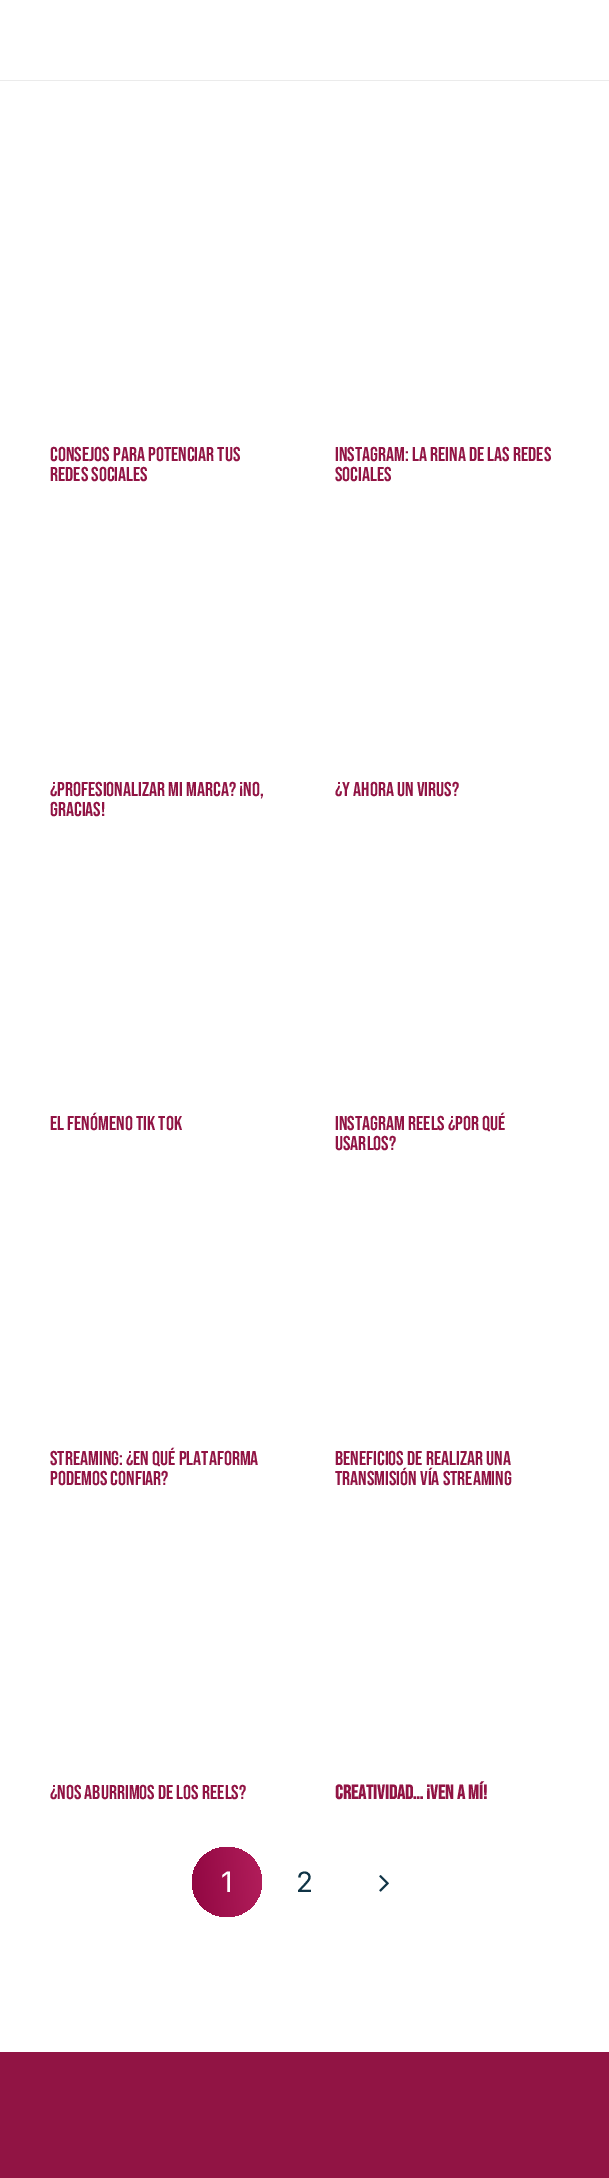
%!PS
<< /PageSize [609 2178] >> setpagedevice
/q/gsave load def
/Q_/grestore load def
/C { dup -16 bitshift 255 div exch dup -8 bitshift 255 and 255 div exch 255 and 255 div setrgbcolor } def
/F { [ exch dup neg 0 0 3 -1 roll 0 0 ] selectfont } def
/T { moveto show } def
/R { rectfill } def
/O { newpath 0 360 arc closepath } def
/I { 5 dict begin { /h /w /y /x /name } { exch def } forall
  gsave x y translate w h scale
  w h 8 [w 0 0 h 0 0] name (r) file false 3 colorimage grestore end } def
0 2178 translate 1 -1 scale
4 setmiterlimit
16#FFFFFF C
0 0 609 2178 R
16#EBEBEB C
0 80 609 1 R
/BebasNeue-Regular 20 F
16#911444 C
(Consejos para potenciar tus) 50 461 T
(redes sociales) 50 481 T
(Instagram: La Reina de las Redes) 335 461 T
(Sociales) 335 481 T
(¿Profesionalizar mi marca? ¡No,) 50 796 T
(gracias!) 50 816 T
(¿Y Ahora un Virus?) 335 796 T
(El Fenómeno TIK TOK) 50 1130 T
(Instagram Reels ¿Por qué) 335 1130 T
(usarlos?) 335 1150 T
(Streaming: ¿En qué plataforma) 50 1465 T
(podemos confiar?) 50 1485 T
(Beneficios de realizar una) 335 1465 T
(transmisión vía streaming) 335 1485 T
(¿Nos aburrimos de los reels?) 50 1799 T
/BebasNeue-Bold 20 F
(Creatividad… ¡Ven a mí!) 335 1799 T
q 227 1882 35 O clip newpath
<< /ShadingType 2 /ColorSpace /DeviceRGB /Coords [265 1879 189 1885] /Extend [true true] /Function << /FunctionType 2 /Domain [0 1] /C0 [.698 .118 .357] /C1 [.569 .027 .259] /N 1 >> >> shfill Q_
/Inter-Regular 28 F
16#FFFFFF C
(1) 221 1892 T
16#103446 C
(2) 296 1892 T
(1.rgb) 379 1875 10 17 I
16#911444 C
0 2052 609 126 R
showpage
